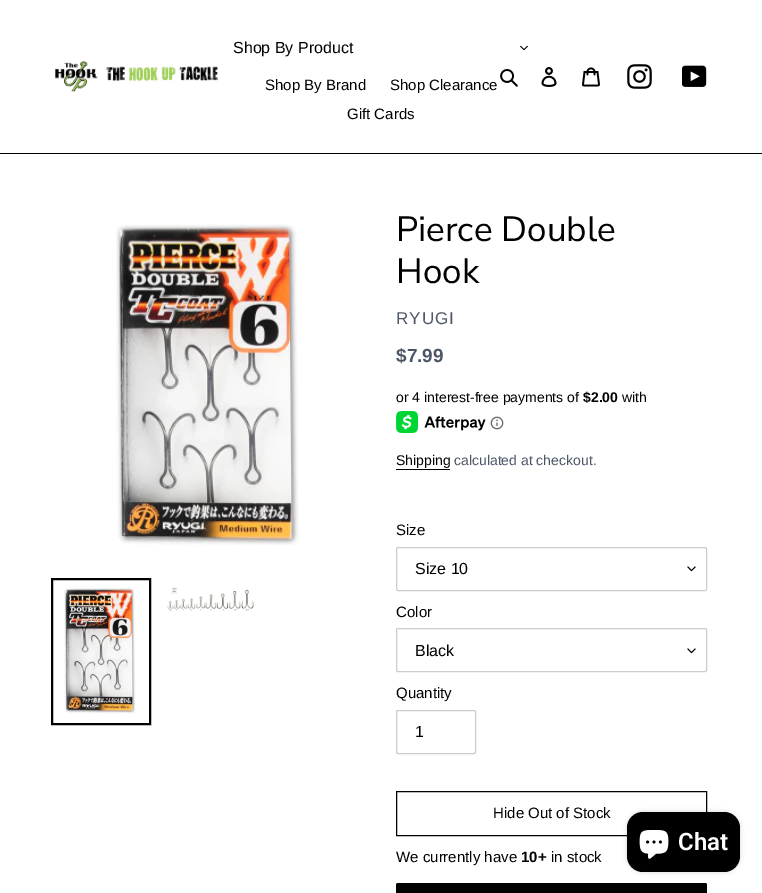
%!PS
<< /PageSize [762 893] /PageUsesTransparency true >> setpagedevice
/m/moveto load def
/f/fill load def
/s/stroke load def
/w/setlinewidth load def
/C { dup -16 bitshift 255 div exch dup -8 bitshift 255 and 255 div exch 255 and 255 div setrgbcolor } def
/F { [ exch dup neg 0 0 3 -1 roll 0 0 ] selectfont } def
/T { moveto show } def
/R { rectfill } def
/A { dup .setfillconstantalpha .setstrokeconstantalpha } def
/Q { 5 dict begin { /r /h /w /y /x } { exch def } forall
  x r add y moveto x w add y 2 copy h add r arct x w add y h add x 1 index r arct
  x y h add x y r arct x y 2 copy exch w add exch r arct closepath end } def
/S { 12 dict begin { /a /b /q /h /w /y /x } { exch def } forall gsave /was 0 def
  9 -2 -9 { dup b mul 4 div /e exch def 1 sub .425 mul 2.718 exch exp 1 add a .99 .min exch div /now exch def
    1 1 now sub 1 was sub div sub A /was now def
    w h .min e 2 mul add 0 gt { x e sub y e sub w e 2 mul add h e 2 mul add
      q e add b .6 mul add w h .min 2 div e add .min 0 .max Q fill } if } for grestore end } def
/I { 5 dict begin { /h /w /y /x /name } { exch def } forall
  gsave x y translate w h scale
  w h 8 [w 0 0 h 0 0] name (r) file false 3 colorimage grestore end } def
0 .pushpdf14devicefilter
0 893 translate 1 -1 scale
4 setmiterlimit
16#FFFFFF C
0 0 762 893 R
16#000000 C
0 153 762 1 R
(1.rgb) 55 61 163 31 I
/LiberationSans-Regular 16 F
(Shop By Product) 233 53 T
(2.rgb) 520 45 8 6 I
/LiberationSans-Regular 15 F
(Shop By Brand) 265 90 T
(Shop Clearance) 390 90 T
(Gift Cards) 347 119 T
(3.rgb) 500 69 18 18 I
(4.rgb) 541 67 16 20 I
(5.rgb) 582 67 18 20 I
(6.rgb) 627 64 25 25 I
(7.rgb) 682 65 25 22 I
(8.rgb) 116 224 183 321 I
2 w
52 579 98 145 rectstroke
(9.rgb) 64 587 72 127 I
(10.rgb) 167 587 87 24 I
/NunitoSans-Regular 35 F
(Pierce Double) 396 241 T
(Hook) 396 283 T
/LiberationSans-Regular 17 F
16#4C5667 C
396 324 m 1 0 (RYUGI) ashow
/LiberationSans-Bold 19 F
($7.99) 396 362 T
/LiberationSans-Regular 14 F
16#000000 C
(or 4 interest-free payments of) 396 402 T
/LiberationSans-Bold 14 F
($2.00) 583 402 T
/LiberationSans-Regular 14 F
(with) 622 402 T
(11.rgb) 396 411 90 22 I
(12.rgb) 490 416 14 14 I
(Shipping) 396 465 T
396 469 54 1 R
16#4C5667 C
(calculated at checkout.) 454 465 T
/LiberationSans-Regular 15 F
16#000000 C
(Size) 396 535 T
(13.rgb) 687 566 9 6 I
16#CCCCCC C
1 w
396.5 547.5 310 43 1.5 Q s
/LiberationSans-Regular 16 F
16#000000 C
(Size 10) 415 574 T
/LiberationSans-Regular 15 F
(Color) 396 617 T
(13.rgb) 687 648 9 6 I
16#CCCCCC C
396.5 628.5 310 43 1.5 Q s
/LiberationSans-Regular 16 F
16#000000 C
(Black) 415 656 T
/LiberationSans-Regular 15 F
(Quantity) 396 698 T
16#CCCCCC C
396.5 710.5 79 43 1.5 Q s
/LiberationSans-Regular 16 F
16#000000 C
(1) 415 737 T
396.5 791.5 310 44 rectstroke
/LiberationSans-Regular 15 F
(Hide Out of Stock) 493 818 T
(We currently have) 396 862 T
/LiberationSans-Bold 15 F
(10+) 521 862 T
/LiberationSans-Regular 15 F
(in stock) 551 862 T
396 883 311 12 2 Q f
627 812 113 60 16 2.5 .15 S
627 812 113 60 16 Q f
(14.rgb) 639 830 30 29 I
/Roboto-SemiBold 24 F
16#FFFFFF C
(Chat) 678 850 T
.poppdf14devicefilter showpage
